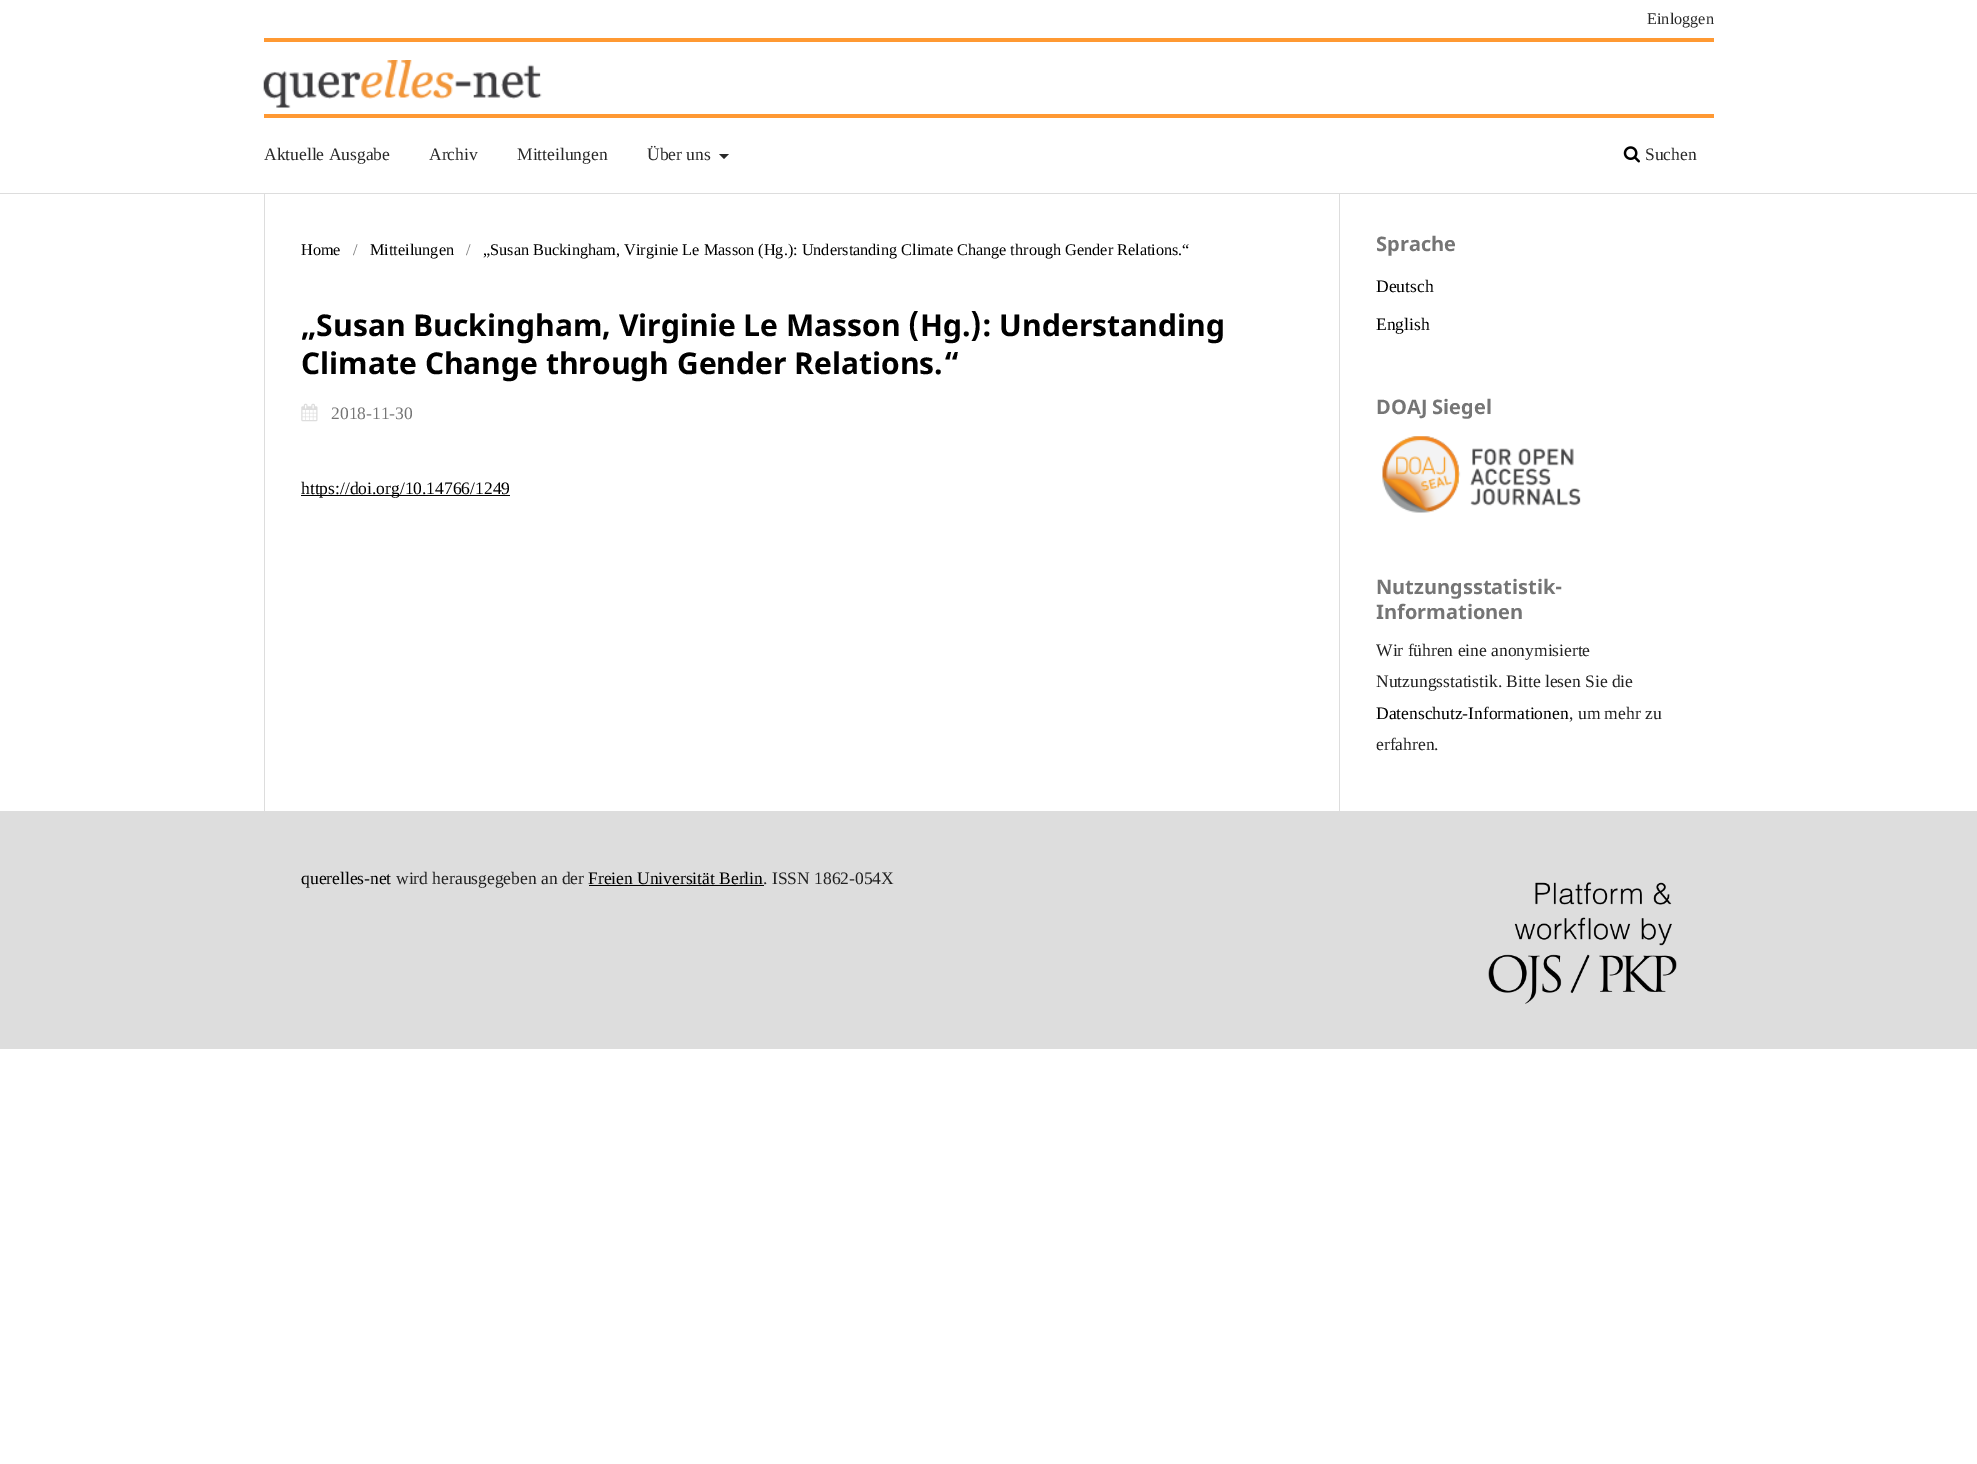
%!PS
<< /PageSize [1977 1464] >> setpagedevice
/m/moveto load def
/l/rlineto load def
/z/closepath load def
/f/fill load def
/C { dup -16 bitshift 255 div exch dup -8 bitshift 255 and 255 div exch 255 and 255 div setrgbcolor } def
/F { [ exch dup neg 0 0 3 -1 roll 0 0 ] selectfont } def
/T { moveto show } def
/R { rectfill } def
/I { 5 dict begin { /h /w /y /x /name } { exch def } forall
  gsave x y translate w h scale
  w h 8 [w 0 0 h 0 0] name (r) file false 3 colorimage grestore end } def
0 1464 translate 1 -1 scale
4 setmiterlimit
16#FFFFFF C
0 0 1977 1464 R
16#DDDDDD C
0 193 1977 1 R
/LiberationSerif-Regular 16.25 F
16#292929 C
(Einloggen) 1647 24 T
/LiberationSerif-Regular 17.5 F
(Aktuelle Ausgabe) 264 160 T
(Archiv) 429 160 T
(Mitteilungen) 517 160 T
(Über uns) 647 160 T
719 154 m 10 0 l -5 5 l z f
(1.rgb) 1623 146 17 17 I
(Suchen) 1645 160 T
16#FF9933 C
264 38 1450 4 R
264 114 1450 4 R
(2.rgb) 263 60 279 48 I
16#DDDDDD C
264 194 1 617 R
/LiberationSerif-Regular 16.25 F
16#000000 C
(Home) 301 255 T
16#757575 C
(/) 353 255 T
16#000000 C
(Mitteilungen) 370 255 T
16#757575 C
(/) 466 255 T
16#000000 C
(„Susan Buckingham, Virginie Le Masson \(Hg.\): Understanding Climate Change through Gender Relations.“) 483 255 T
/NotoSans-Bold 30 F
(„Susan Buckingham, Virginie Le Masson \(Hg.\): Understanding) 301 336 T
(Climate Change through Gender Relations.“) 301 374 T
(3.rgb) 301 403 17 19 I
/LiberationSerif-Regular 17.5 F
16#757575 C
(2018-11-30) 331 419 T
16#000000 C
301 495 209 1 R
(https://doi.org/10.14766/1249) 301 494 T
16#DDDDDD C
1339 194 1 617 R
/NotoSans-Bold 20 F
16#757575 C
(Sprache) 1376 251 T
/LiberationSerif-Regular 17.5 F
16#000000 C
(Deutsch) 1376 292 T
(English) 1376 330 T
/NotoSans-Bold 20 F
16#757575 C
(DOAJ Siegel) 1376 414 T
(4.rgb) 1382 436 199 77 I
(Nutzungsstatistik-) 1376 594 T
(Informationen) 1376 619 T
/LiberationSerif-Regular 17.5 F
16#212121 C
(Wir führen eine anonymisierte) 1376 656 T
(Nutzungsstatistik. Bitte lesen Sie die) 1376 687 T
16#000000 C
(Datenschutz-Informationen) 1376 719 T
16#212121 C
(, um mehr zu) 1569 719 T
(erfahren.) 1376 750 T
16#DDDDDD C
0 811 1977 238 R
16#000000 C
(querelles-net) 301 884 T
16#212121 C
(wird herausgegeben an der) 396 884 T
16#000000 C
(Freien Universität Berlin) 588 884 T
589 885 175 1 R
16#212121 C
(. ISSN 1862-054X) 763 884 T
(5.rgb) 1488 882 189 122 I
showpage
